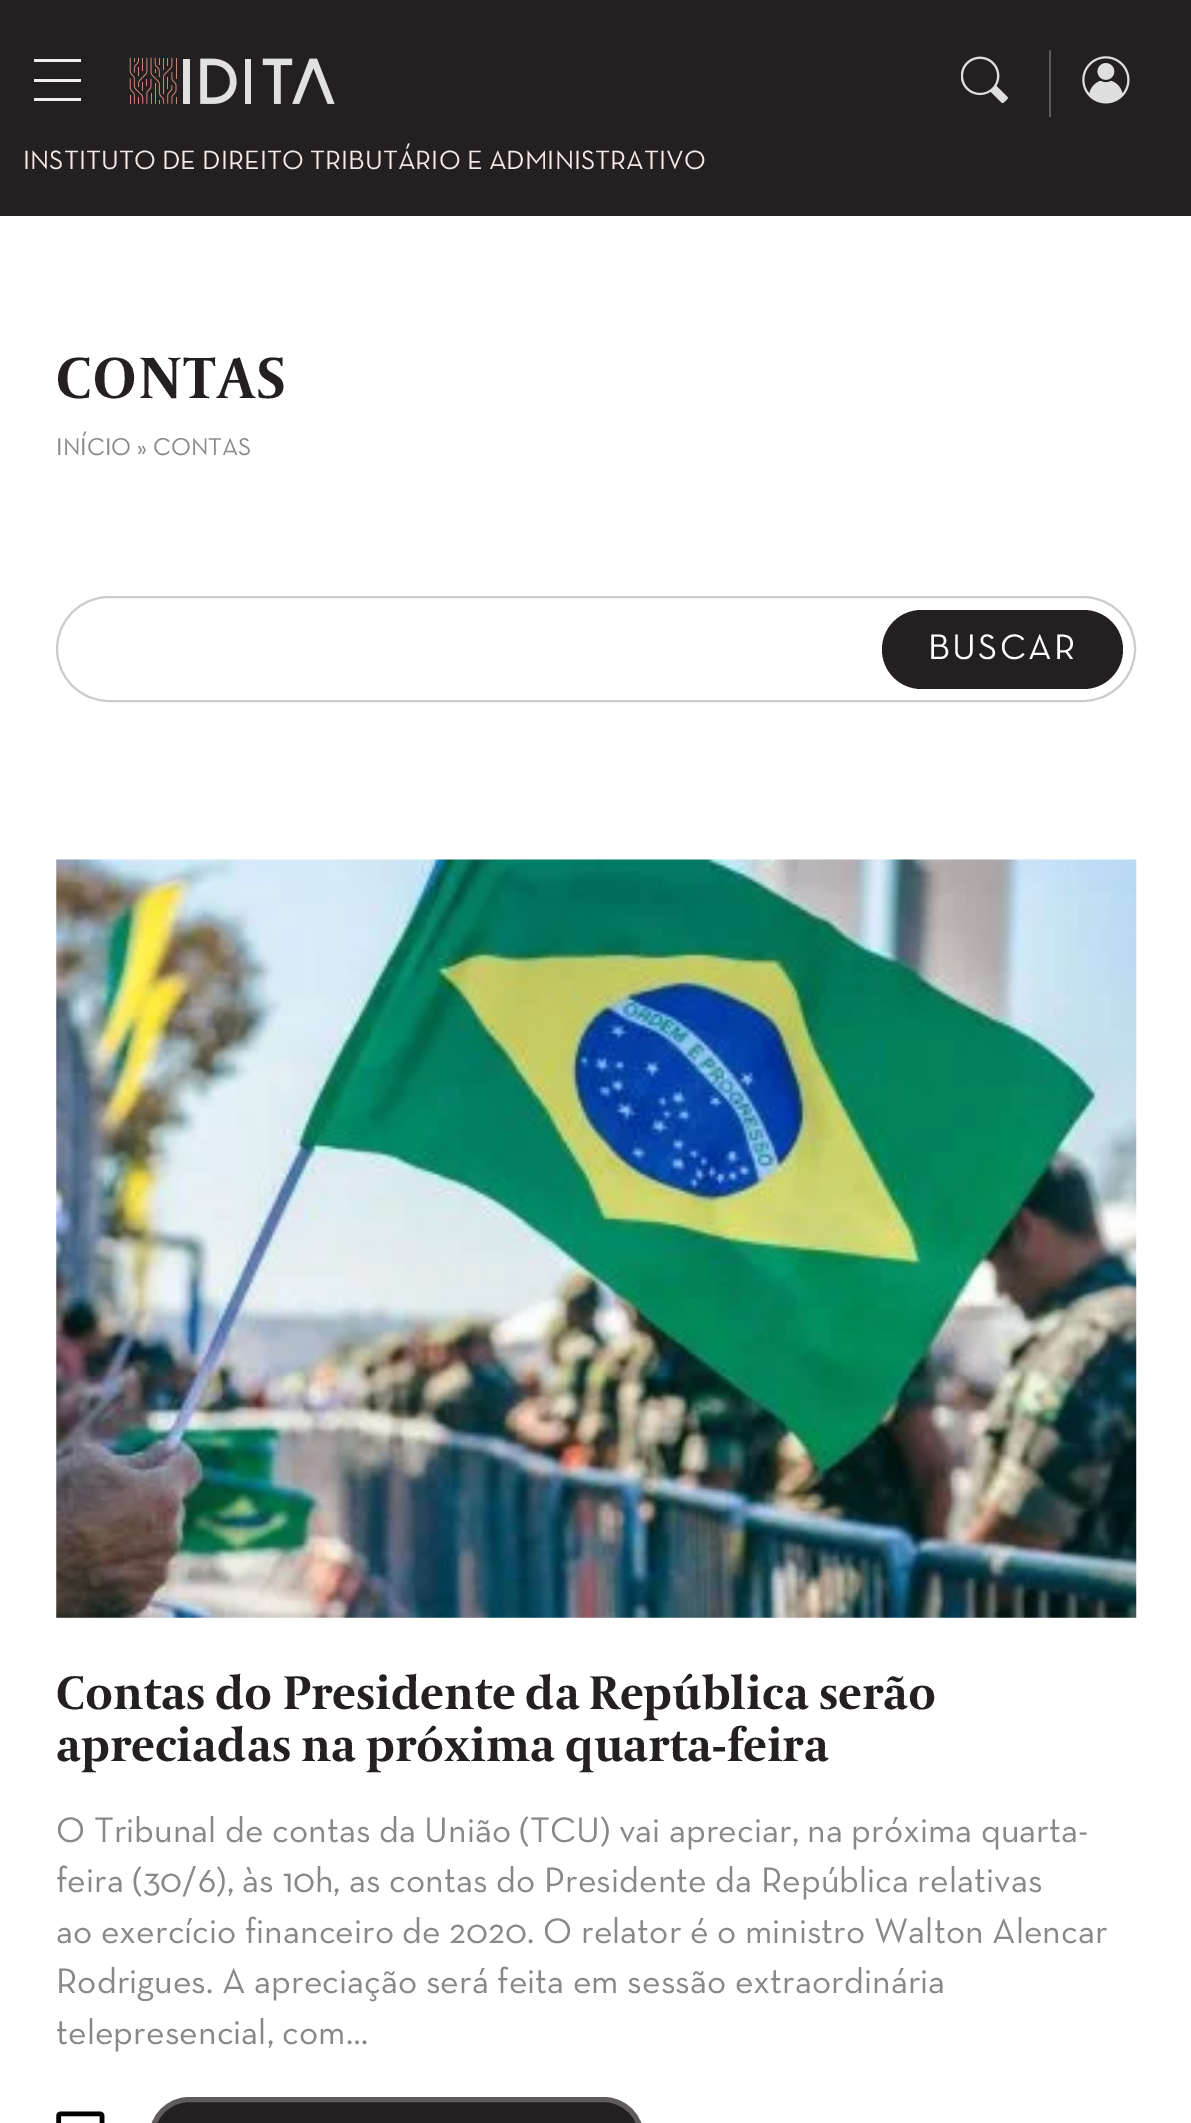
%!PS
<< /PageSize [1191 2123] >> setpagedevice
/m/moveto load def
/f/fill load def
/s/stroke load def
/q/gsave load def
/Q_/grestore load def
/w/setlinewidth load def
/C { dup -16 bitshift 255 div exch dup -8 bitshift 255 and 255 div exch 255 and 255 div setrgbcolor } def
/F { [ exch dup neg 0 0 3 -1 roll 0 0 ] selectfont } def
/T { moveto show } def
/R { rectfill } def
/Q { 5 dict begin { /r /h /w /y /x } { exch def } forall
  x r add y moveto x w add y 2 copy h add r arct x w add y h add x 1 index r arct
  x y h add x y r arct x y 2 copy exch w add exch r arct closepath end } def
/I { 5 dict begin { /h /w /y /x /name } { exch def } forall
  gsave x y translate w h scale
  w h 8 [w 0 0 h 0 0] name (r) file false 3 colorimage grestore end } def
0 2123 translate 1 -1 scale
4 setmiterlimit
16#FFFFFF C
0 0 1191 2123 R
16#242021 C
0 0 1191 216 R
16#EFEEEE C
34 59 47 3 R
34 79 47 3 R
34 98 47 3 R
(1.rgb) 129 57 206 47 I
16#5D5A5A C
1049 50 2 67 R
(2.rgb) 961 56 47 48 I
(3.rgb) 1082 56 48 48 I
/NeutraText-Regular 27 F
16#F4E9E7 C
(INSTITUTO DE DIREITO TRIBUTÁRIO E ADMINISTRATIVO) 23 169 T
/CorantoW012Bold-Bold 57.5 F
16#242021 C
56 398 m 2.25 0 (CONTAS) ashow
/NeutraText-Regular 24.75 F
16#888888 C
(INÍCIO » CONTAS) 56 455 T
16#CCCCCC C
2 w
57 597 1078 104 52 Q s
16#242021 C
882 610 241 79 39.5 Q f
/NeutraText-Regular 36 F
16#FFFFFF C
928 659 m 2.25 0 (BUSCAR) ashow
(4.rgb) 56 859 1081 759 I
/CorantoW012Bold-Bold 46.75 F
16#242021 C
(Contas do Presidente da República serão) 56 1709 T
(apreciadas na próxima quarta-feira) 56 1761 T
/NeutraText-Regular 36 F
16#888888 C
(O Tribunal de contas da União \(TCU\) vai apreciar, na próxima quarta-) 56 1842 T
(feira \(30/6\), às 10h, as contas do Presidente da República relativas) 56 1892 T
(ao exercício financeiro de 2020. O relator é o ministro Walton Alencar) 56 1943 T
(Rodrigues. A apreciação será feita em sessão extraordinária) 56 1993 T
(telepresencial, com…) 56 2044 T
(5.rgb) 56 2111 49 12 I
16#242021 C
151.5 2099.5 490 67 38 Q q f Q_
16#605C5D C
5 w
s
showpage
